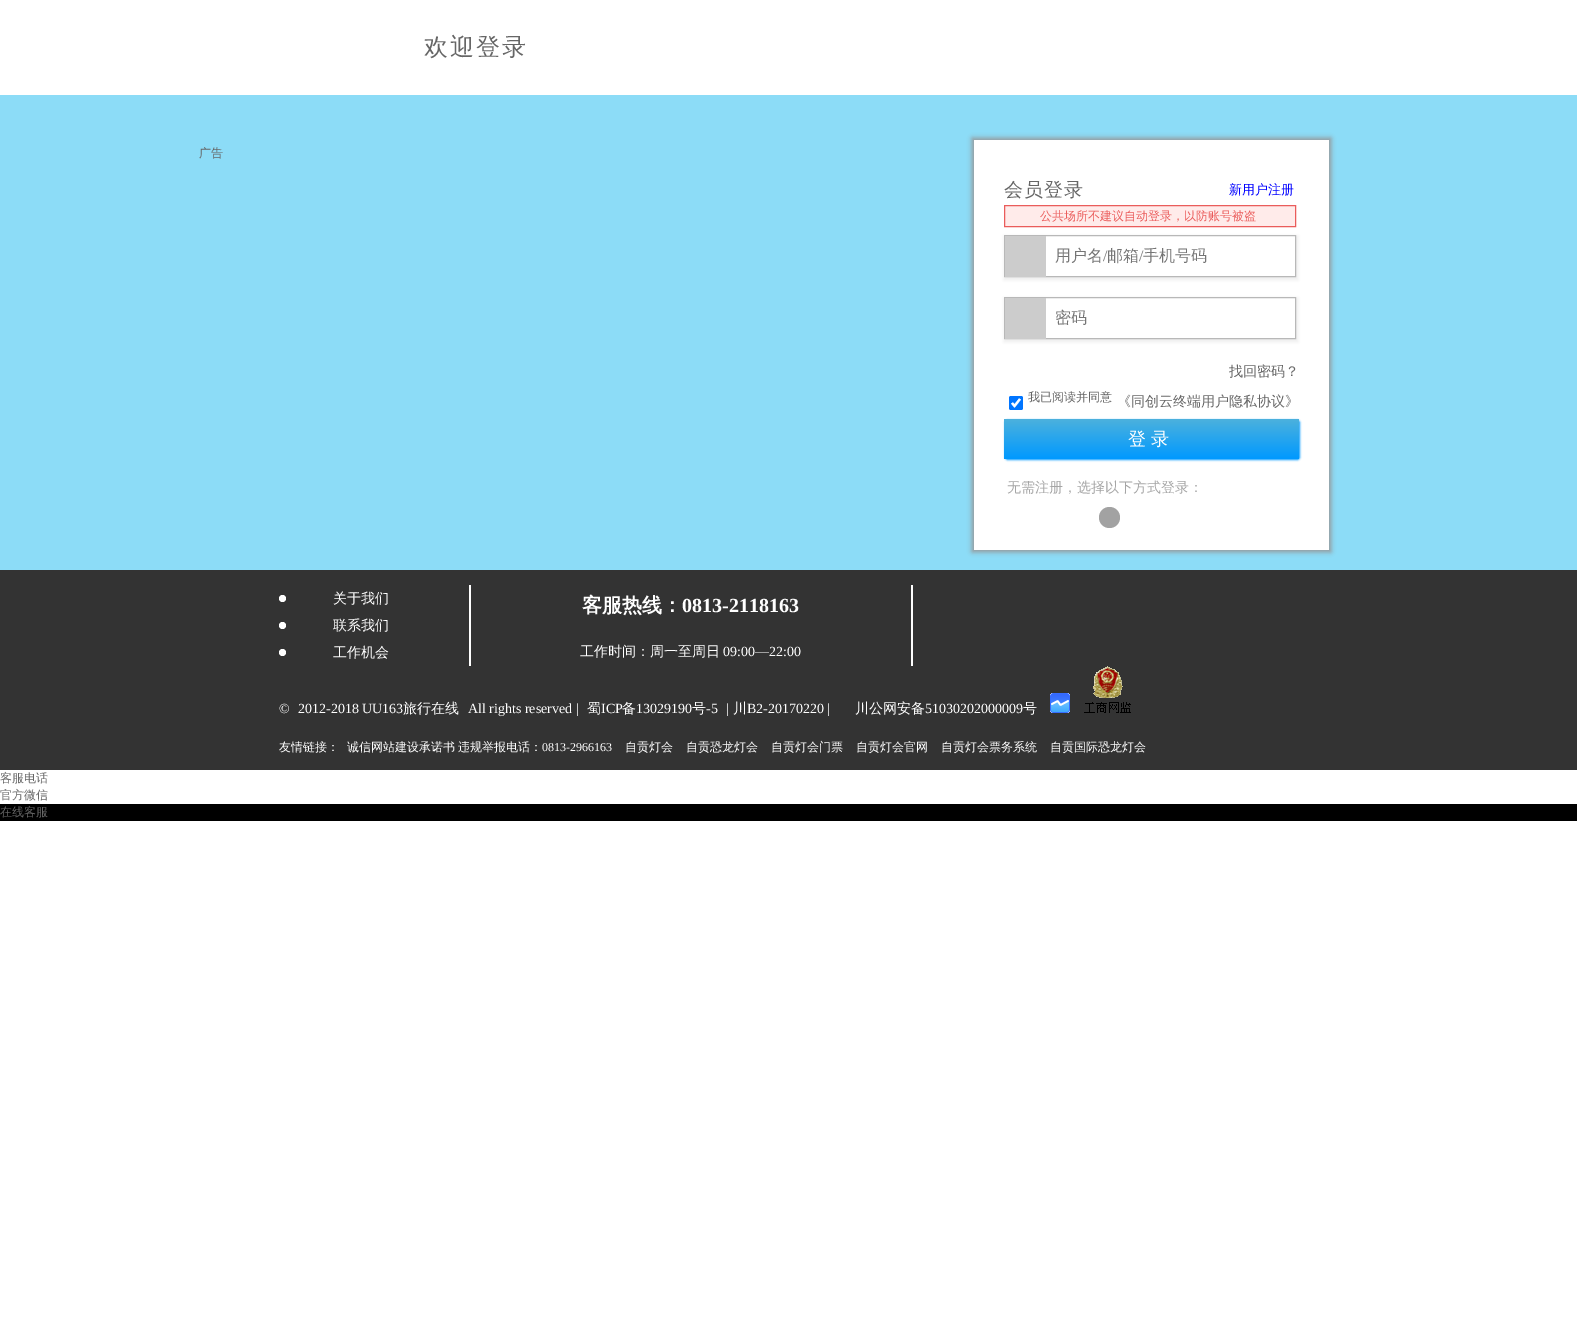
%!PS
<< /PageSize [1577 1332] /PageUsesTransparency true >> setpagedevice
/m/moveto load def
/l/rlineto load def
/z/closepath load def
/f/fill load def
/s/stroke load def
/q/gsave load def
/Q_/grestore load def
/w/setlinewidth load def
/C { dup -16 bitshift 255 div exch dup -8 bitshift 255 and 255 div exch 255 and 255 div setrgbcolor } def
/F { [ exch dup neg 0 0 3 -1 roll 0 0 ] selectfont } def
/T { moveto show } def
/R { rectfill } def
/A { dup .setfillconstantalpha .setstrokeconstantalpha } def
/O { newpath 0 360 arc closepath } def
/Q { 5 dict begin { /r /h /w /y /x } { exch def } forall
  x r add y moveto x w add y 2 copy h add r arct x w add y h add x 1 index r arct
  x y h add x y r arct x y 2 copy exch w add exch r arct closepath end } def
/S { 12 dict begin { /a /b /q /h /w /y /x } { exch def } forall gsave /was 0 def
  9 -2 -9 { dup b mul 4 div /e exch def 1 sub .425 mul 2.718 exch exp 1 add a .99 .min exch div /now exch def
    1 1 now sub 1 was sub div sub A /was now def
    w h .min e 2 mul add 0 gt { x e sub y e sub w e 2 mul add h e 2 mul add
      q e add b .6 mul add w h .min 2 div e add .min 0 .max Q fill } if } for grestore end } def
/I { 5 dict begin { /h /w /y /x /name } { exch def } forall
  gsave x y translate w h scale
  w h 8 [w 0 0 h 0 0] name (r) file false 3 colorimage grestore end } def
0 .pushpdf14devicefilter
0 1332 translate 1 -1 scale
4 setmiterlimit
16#FFFFFF C
0 0 1577 1332 R
16#8CDCF7 C
0 95 1577 475 R
/WenQuanYiZenHei-Medium 24 F
16#666666 C
424 55 m 2 0 (欢迎登录) ashow
/WenQuanYiZenHei-Medium 12 F
(广告) 199 157 T
16#969696 C
972 138 359 414 0 2.5 1 S
16#FFFFFF C
974 140 355 410 R
/WenQuanYiZenHei-Medium 19 F
16#666666 C
1004 196 m 1 0 (会员登录) ashow
/WenQuanYiZenHei-Medium 13 F
16#0000FF C
(新用户注册) 1229 194 T
16#FFEBEA C
1004.5 205.5 m 291 0 l 0 21 l -291 0 l z q f Q_
16#EA5C5B C
s
/WenQuanYiZenHei-Medium 12 F
(公共场所不建议自动登录，以防账号被盗) 1040 220 T
q
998 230 m 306 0 l 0 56 l -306 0 l z 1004 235 m 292 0 l 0 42 l -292 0 l z eoclip newpath
16#EEEEEE C
1004 236 294 44 0 1.5 1 S
Q_
16#B8B8B8 C
1004.5 235.5 291 41 rectstroke
16#CCCCCC C
1005 236 41 41 R
/WenQuanYiZenHei-Medium 16 F
16#757575 C
(用户名) 1055 261 T
/LiberationSerif-Regular 16 F
(/) 1103 261 T
/WenQuanYiZenHei-Medium 16 F
(邮箱) 1107 261 T
/LiberationSerif-Regular 16 F
(/) 1139 261 T
/WenQuanYiZenHei-Medium 16 F
(手机号码) 1143 261 T
q
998 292 m 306 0 l 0 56 l -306 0 l z 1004 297 m 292 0 l 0 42 l -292 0 l z eoclip newpath
16#EEEEEE C
1004 298 294 44 0 1.5 1 S
Q_
16#B8B8B8 C
1004.5 297.5 291 41 rectstroke
16#CCCCCC C
1005 298 41 41 R
16#757575 C
(密码) 1055 323 T
/WenQuanYiZenHei-Medium 14 F
16#666666 C
(找回密码？) 1229 376 T
16#0075FF C
1009 396 14 14 2 Q f
16#FFFFFF C
2.2 w
1012 403 m 2.5 3 l 5.5 -7 l s
/WenQuanYiZenHei-Medium 12 F
16#666666 C
(我已阅读并同意) 1028 401 T
/WenQuanYiZenHei-Medium 14 F
(《同创云终端用户隐私协议》) 1117 406 T
16#0099FF C
1005 420 295 40 3 1 1 S
q 1004 419 295 40 3 Q clip newpath
<< /ShadingType 2 /ColorSpace /DeviceRGB /Coords [1152 419 1152 459] /Extend [true true] /Function << /FunctionType 2 /Domain [0 1] /C0 [.298 .694 .867] /C1 [0 .6 1] /N 1 >> >> shfill Q_
/WenQuanYiZenHei-Medium 18 F
16#FFFFFF C
1128 445 m 5 0 (登录) ashow
/WenQuanYiZenHei-Medium 14 F
16#A5A5A5 C
(无需注册，选择以下方式登录：) 1007 492 T
16#A2A2A2 C
1109.5 517.5 10.5 O f
16#333333 C
0 570 1577 200 R
16#FFFFFF C
469 585 2 81 R
282.5 598.5 3.5 O f
(关于我们) 333 603 T
282.5 625.5 3.5 O f
(联系我们) 333 630 T
282.5 652.5 3.5 O f
(工作机会) 333 657 T
911 585 2 81 R
/WenQuanYiZenHei-Bold 20 F
(客服热线：) 582 612 T
/LiberationSerif-Bold 20 F
(0813-2118163) 682 612 T
/WenQuanYiZenHei-Medium 14 F
(工作时间：周一至周日) 580 656 T
/LiberationSerif-Regular 14 F
(09:00—22:00) 723 656 T
(©) 279 713 T
(2012-2018 UU163) 298 713 T
/WenQuanYiZenHei-Medium 14 F
(旅行在线) 403 713 T
/LiberationSerif-Regular 14 F
(All rights reserved |) 468 713 T
/WenQuanYiZenHei-Medium 14 F
(蜀) 587 713 T
/LiberationSerif-Regular 14 F
(ICP) 601 713 T
/WenQuanYiZenHei-Medium 14 F
(备) 622 713 T
/LiberationSerif-Regular 14 F
(13029190) 636 713 T
/WenQuanYiZenHei-Medium 14 F
(号) 692 713 T
/LiberationSerif-Regular 14 F
(-5) 706 713 T
(|) 726 713 T
/WenQuanYiZenHei-Medium 14 F
(川) 733 713 T
/LiberationSerif-Regular 14 F
(B2-20170220 |) 747 713 T
/WenQuanYiZenHei-Medium 14 F
(川公网安备) 855 713 T
/LiberationSerif-Regular 14 F
(51030202000009) 925 713 T
/WenQuanYiZenHei-Medium 14 F
(号) 1023 713 T
(1.rgb) 1050 693 20 20 I
(2.rgb) 1084 666 47 47 I
/WenQuanYiZenHei-Medium 12 F
(友情链接：) 279 751 T
347 751 m -1 0 32 (诚信网站建设承诺书 违规举报电话：) widthshow
/LiberationSerif-Regular 12 F
(0813-2966163) 542 751 T
/WenQuanYiZenHei-Medium 12 F
(自贡灯会) 625 751 T
(自贡恐龙灯会) 686 751 T
(自贡灯会门票) 771 751 T
(自贡灯会官网) 856 751 T
(自贡灯会票务系统) 941 751 T
(自贡国际恐龙灯会) 1050 751 T
16#666666 C
(客服电话) 0 782 T
(官方微信) 0 799 T
16#000000 C
0 804 1577 17 R
16#666666 C
(在线客服) 0 816 T
.poppdf14devicefilter showpage
